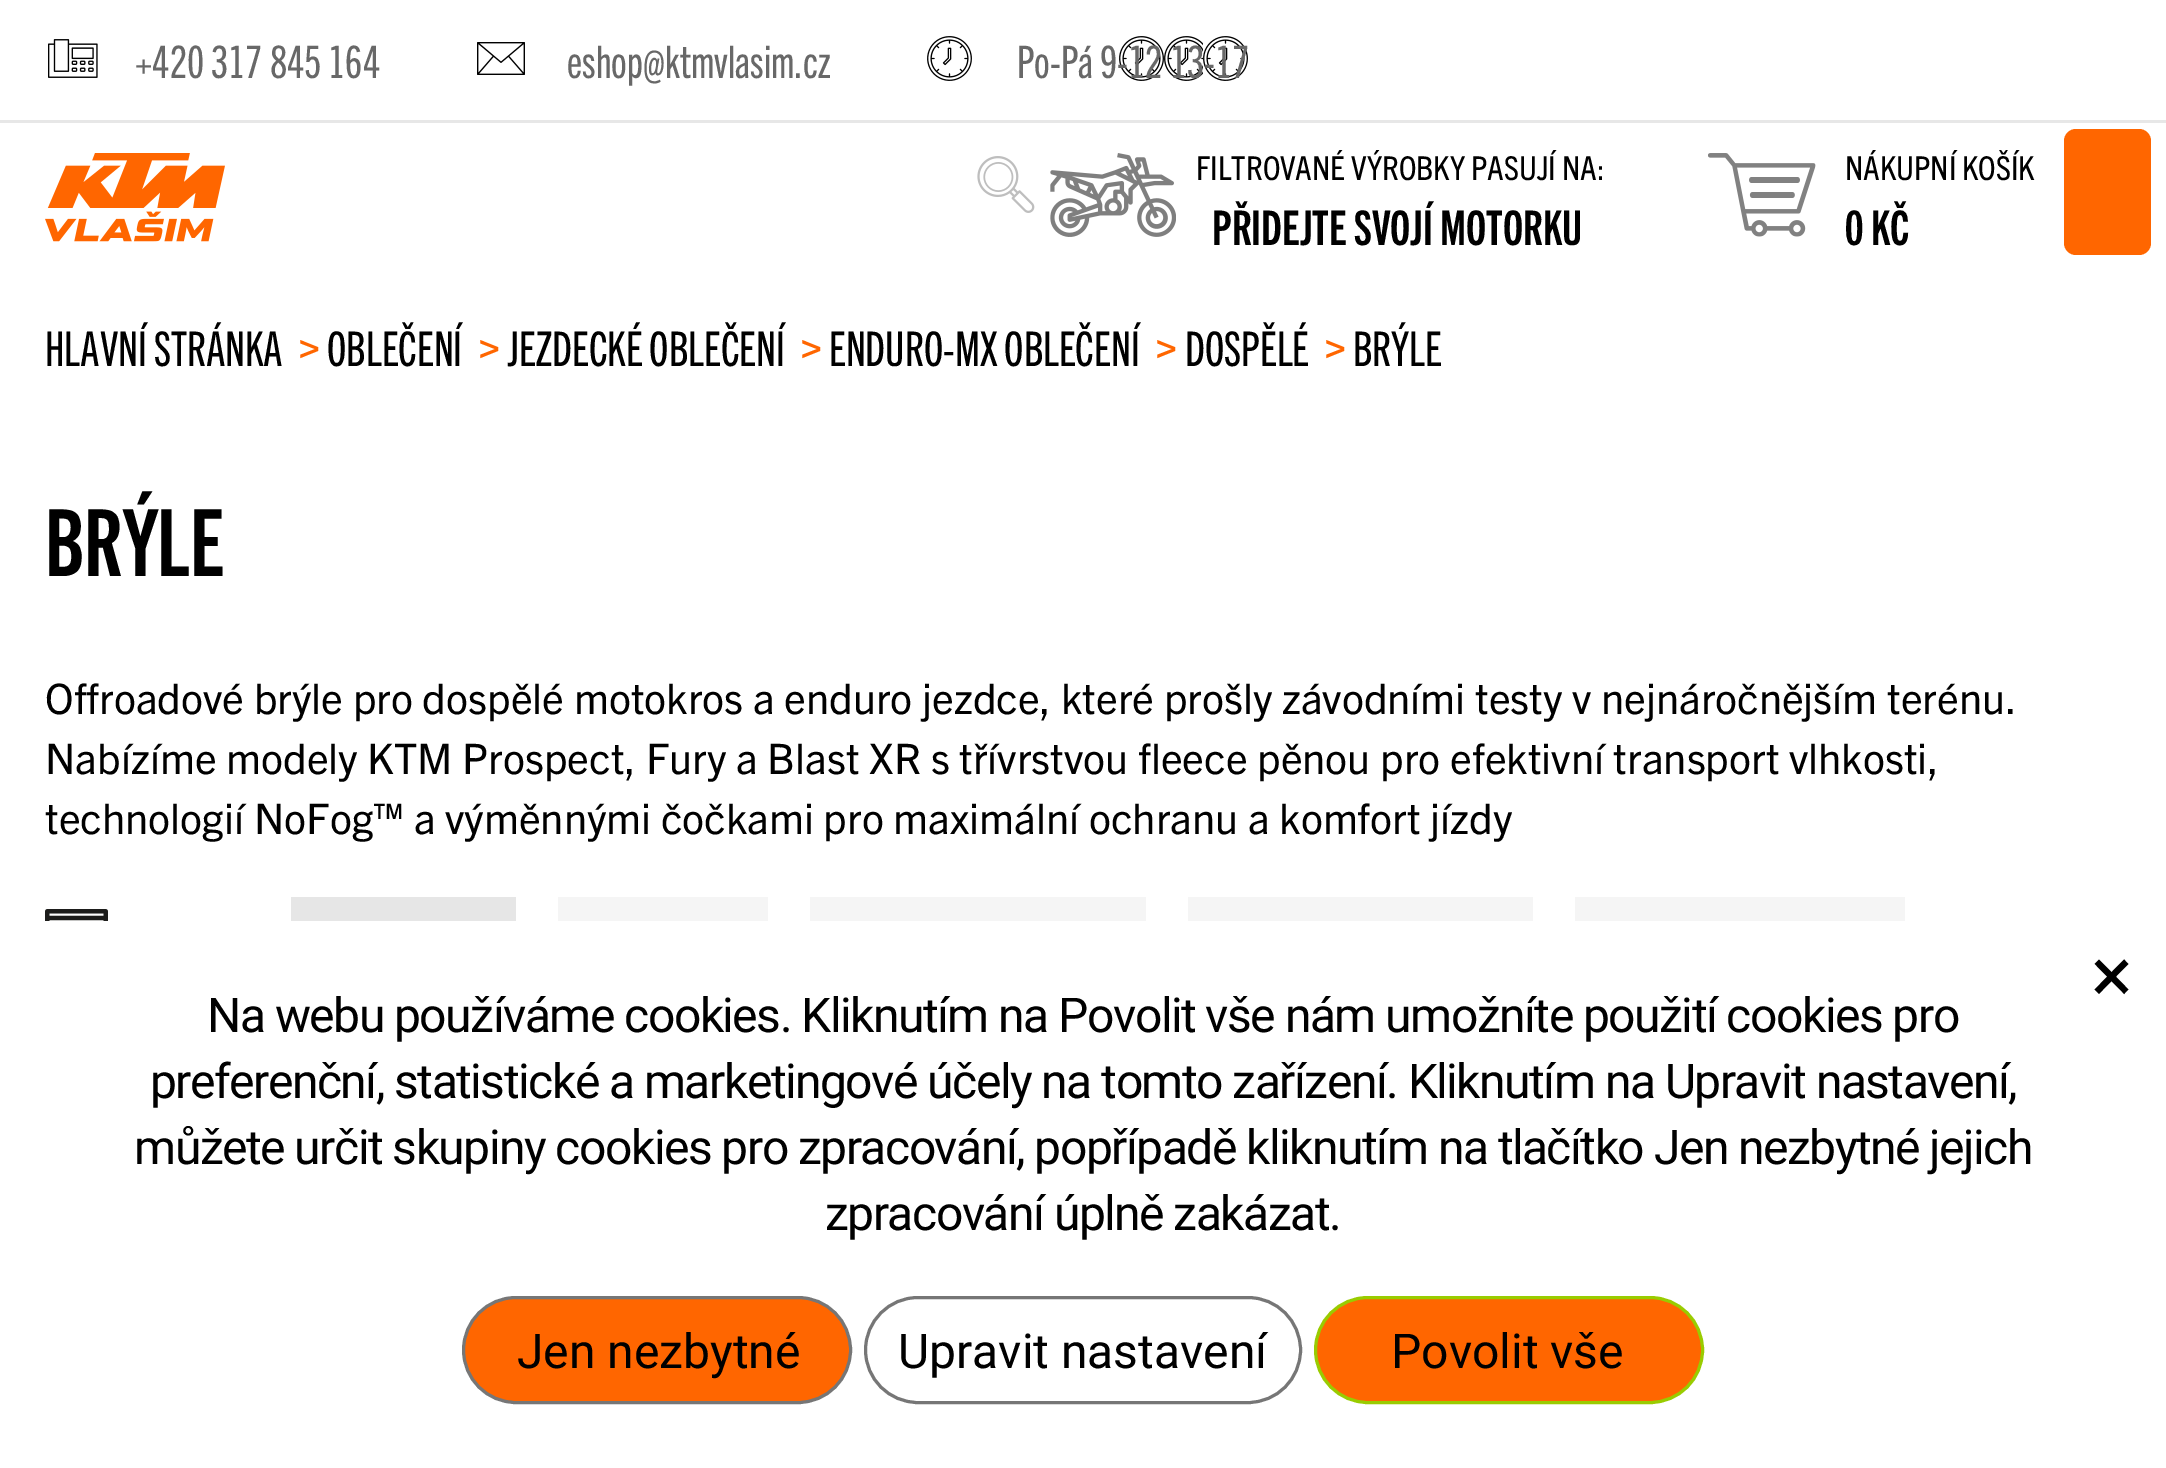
%!PS
<< /PageSize [2166 1468] >> setpagedevice
/m/moveto load def
/f/fill load def
/s/stroke load def
/q/gsave load def
/Q_/grestore load def
/w/setlinewidth load def
/C { dup -16 bitshift 255 div exch dup -8 bitshift 255 and 255 div exch 255 and 255 div setrgbcolor } def
/F { [ exch dup neg 0 0 3 -1 roll 0 0 ] selectfont } def
/T { moveto show } def
/R { rectfill } def
/Q { 5 dict begin { /r /h /w /y /x } { exch def } forall
  x r add y moveto x w add y 2 copy h add r arct x w add y h add x 1 index r arct
  x y h add x y r arct x y 2 copy exch w add exch r arct closepath end } def
/I { 5 dict begin { /h /w /y /x /name } { exch def } forall
  gsave x y translate w h scale
  w h 8 [w 0 0 h 0 0] name (r) file false 3 colorimage grestore end } def
0 1468 translate 1 -1 scale
4 setmiterlimit
16#FFFFFF C
0 0 2166 1468 R
16#E7E7E7 C
0 120 2166 3 R
(1.rgb) 48 39 50 39 I
/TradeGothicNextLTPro-Regular 45 F
16#686868 C
(+420 317 845 164) 135 78 T
(2.rgb) 477 42 48 33 I
(eshop@ktmvlasim.cz) 567 78 T
(3.rgb) 927 36 321 45 I
(Po-Pá 9-12 13-17) 1017 78 T
(4.rgb) 45 153 180 89 I
(5.rgb) 977 156 58 57 I
(6.rgb) 1050 153 126 84 I
/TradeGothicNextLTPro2-Regular 33 F
16#000000 C
(FILTROVANÉ VÝROBKY PASUJÍ NA:) 1196 180 T
/TradeGothicNextLTPro-Bold 48 F
(PŘIDEJTE SVOJÍ MOTORKU) 1212 245 T
(7.rgb) 1708 153 108 84 I
/TradeGothicNextLTPro2-Regular 33 F
(NÁKUPNÍ KOŠÍK) 1845 180 T
/TradeGothicNextLTPro-Bold 48 F
(0 KČ) 1845 245 T
16#FF6600 C
2064 129 87 126 12 Q f
/TradeGothicNextLTPro-Regular 48 F
16#000000 C
(HLAVNÍ STRÁNKA) 45 366 T
/TradeGothicNextLTPro-Regular 66 F
16#FF6600 C
(>) 296 366 T
/TradeGothicNextLTPro-Regular 48 F
16#000000 C
(OBLEČENÍ) 327 366 T
/TradeGothicNextLTPro-Regular 66 F
16#FF6600 C
(>) 476 366 T
/TradeGothicNextLTPro-Regular 48 F
16#000000 C
(JEZDECKÉ OBLEČENÍ) 507 366 T
/TradeGothicNextLTPro-Regular 66 F
16#FF6600 C
(>) 798 366 T
/TradeGothicNextLTPro-Regular 48 F
16#000000 C
(ENDURO-MX OBLEČENÍ) 829 366 T
/TradeGothicNextLTPro-Regular 66 F
16#FF6600 C
(>) 1153 366 T
/TradeGothicNextLTPro-Regular 48 F
16#000000 C
(DOSPĚLÉ) 1185 366 T
/TradeGothicNextLTPro-Regular 66 F
16#FF6600 C
(>) 1322 366 T
/TradeGothicNextLTPro-Regular 48 F
16#000000 C
(BRÝLE) 1353 366 T
/TradeGothicNextLTPro-Bold 93 F
(BRÝLE) 45 576 T
/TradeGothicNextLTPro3-Regular 42 F
(Offroadové brýle pro dospělé motokros a enduro jezdce, které prošly závodními testy v nejnáročnějším terénu.) 45 714 T
(Nabízíme modely KTM Prospect, Fury a Blast XR s třívrstvou fleece pěnou pro efektivní transport vlhkosti,) 45 774 T
(technologií NoFog™ a výměnnými čočkami pro maximální ochranu a komfort jízdy) 45 834 T
(8.rgb) 45 909 63 12 I
16#E6E6E6 C
291 897 225 24 R
16#F5F5F5 C
558 897 210 24 R
810 897 336 24 R
1188 897 345 24 R
1575 897 330 24 R
/Roboto-Regular 78 F
16#000000 C
(×) 2091 1002 T
/Roboto-Regular 48 F
207 1032 m -1.5 0 (Na webu používáme cookies. Kliknutím na Povolit vše nám umožníte použití cookies pro) ashow
150 1098 m -1.5 0 (preferenční, statistické a marketingové účely na tomto zařízení. Kliknutím na Upravit nastavení,) ashow
134 1164 m -1.5 0 (můžete určit skupiny cookies pro zpracování, popřípadě kliknutím na tlačítko Jen nezbytné jejich) ashow
825 1230 m -1.5 0 (zpracování úplně zakázat.) ashow
16#FF6600 C
463.5 1297.5 387 105 52.5 Q q f Q_
16#767676 C
3 w
s
16#000000 C
(Jen nezbytné) 517 1368 T
16#767676 C
865.5 1297.5 435 105 52.5 Q s
16#000000 C
(Upravit nastavení) 898 1368 T
16#FF6600 C
1315.5 1297.5 387 105 52.5 Q q f Q_
16#99CC00 C
s
16#000000 C
(Povolit vše) 1391 1368 T
showpage
